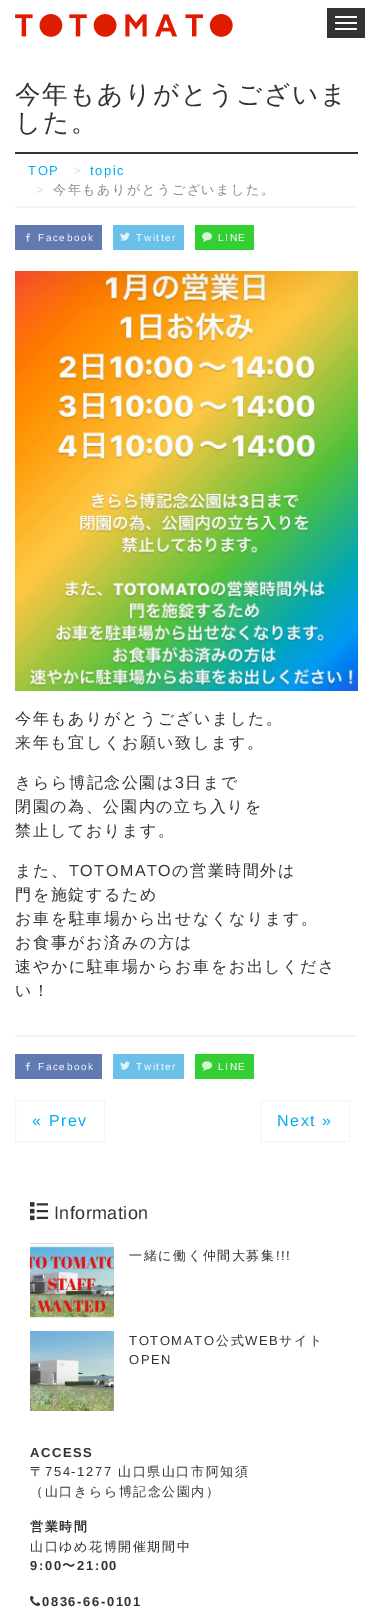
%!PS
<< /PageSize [373 1624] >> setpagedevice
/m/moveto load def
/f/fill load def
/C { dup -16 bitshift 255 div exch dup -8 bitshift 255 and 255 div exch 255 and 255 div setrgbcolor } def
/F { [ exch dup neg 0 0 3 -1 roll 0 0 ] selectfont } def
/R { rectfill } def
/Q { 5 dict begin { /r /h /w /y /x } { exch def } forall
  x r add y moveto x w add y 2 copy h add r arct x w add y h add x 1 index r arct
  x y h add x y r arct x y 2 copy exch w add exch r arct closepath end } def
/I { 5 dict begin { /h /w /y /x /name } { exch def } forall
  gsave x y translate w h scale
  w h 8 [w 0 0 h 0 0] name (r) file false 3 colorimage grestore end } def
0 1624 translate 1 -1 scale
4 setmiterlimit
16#FFFFFF C
0 0 373 1624 R
(1.rgb) 15 14 218 23 I
16#333333 C
327 8 38 30 R
16#FFFFFF C
335 16 22 2 1 Q f
335 22 22 2 1 Q f
335 28 22 2 1 Q f
/WenQuanYiZenHei-Medium 25.6 F
16#333333 C
15 103 m 1.6 0 (今年もありがとうございま) ashow
15 131 m 1.6 0 (した。) ashow
15 152 343 2 R
16#F5F5F5 C
15 206 343 2 R
/LiberationSans-Regular 13 F
16#00AEEF C
28 175 m 1.6 0 (TOP) ashow
16#DDDDDD C
73 175 m 1.6 0 (>) ashow
16#00AEEF C
90 175 m 1.6 0 (topic) ashow
16#DDDDDD C
36 194 m 1.6 0 (>) ashow
/WenQuanYiZenHei-Medium 13 F
16#818A91 C
53 194 m 1.6 0 (今年もありがとうございました。) ashow
16#617AB2 C
15 225 87 25 R
(2.rgb) 25 233 6 9 I
/LiberationSans-Regular 10 F
16#FFFFFF C
38 241 m 1.6 0 (Facebook) ashow
16#6AC0E9 C
113 225 71 25 R
(3.rgb) 120 232 10 9 I
16#FFFFFF C
136 241 m 1.6 0 (Twitter) ashow
16#33CF33 C
195 225 59 25 R
(4.rgb) 202 232 10 10 I
16#FFFFFF C
218 241 m 1.6 0 (LINE) ashow
16#F5F5F5 C
15 1035 343 2 R
(5.rgb) 15 271 343 420 I
/WenQuanYiZenHei-Medium 16 F
16#333333 C
15 724 m 1.6 0 (今年もありがとうございました。) ashow
15 748 m 1.6 0 (来年も宜しくお願い致します。) ashow
15 788 m 1.6 0 (きらら博記念公園は) ashow
/LiberationSans-Regular 16 F
175 788 m 1.6 0 (3) ashow
/WenQuanYiZenHei-Medium 16 F
185 788 m 1.6 0 (日まで) ashow
15 812 m 1.6 0 (閉園の為、公園内の立ち入りを) ashow
15 836 m 1.6 0 (禁止しております。) ashow
15 876 m 1.6 0 (また、) ashow
/LiberationSans-Regular 16 F
69 876 m 1.6 0 (TOTOMATO) ashow
/WenQuanYiZenHei-Medium 16 F
172 876 m 1.6 0 (の営業時間外は) ashow
15 900 m 1.6 0 (門を施錠するため) ashow
15 924 m 1.6 0 (お車を駐車場から出せなくなります。) ashow
15 948 m 1.6 0 (お食事がお済みの方は) ashow
15 972 m 1.6 0 (速やかに駐車場からお車をお出しくださ) ashow
15 996 m 1.6 0 (い！) ashow
16#617AB2 C
15 1054 87 25 R
(2.rgb) 25 1062 6 9 I
/LiberationSans-Regular 10 F
16#FFFFFF C
38 1070 m 1.6 0 (Facebook) ashow
16#6AC0E9 C
113 1054 71 25 R
(3.rgb) 120 1061 10 9 I
16#FFFFFF C
136 1070 m 1.6 0 (Twitter) ashow
16#33CF33 C
195 1054 59 25 R
(4.rgb) 202 1061 10 10 I
16#FFFFFF C
218 1070 m 1.6 0 (LINE) ashow
16#F5F5F5 C
15.5 1100.5 89 41 rectstroke
/LiberationSans-Regular 16 F
16#00AEEF C
32 1126 m 1.6 0 (« Prev) ashow
16#F5F5F5 C
260.5 1100.5 89 41 rectstroke
16#00AEEF C
277 1126 m 1.6 0 (Next ») ashow
(6.rgb) 30 1202 18 19 I
/LiberationSans-Regular 18 F
16#333333 C
54 1219 m .4 0 (Information) ashow
(7.rgb) 30 1243 84 80 I
/WenQuanYiZenHei-Medium 13 F
129 1260 m 1.6 0 (一緒に働く仲間大募集) ashow
/LiberationSans-Regular 13 F
276 1260 m 1.6 0 (!!!) ashow
(8.rgb) 30 1331 84 80 I
129 1345 m 1.6 0 (TOTOMATO) ashow
/WenQuanYiZenHei-Medium 13 F
216 1345 m 1.6 0 (公式) ashow
/LiberationSans-Regular 13 F
245 1345 m 1.6 0 (WEB) ashow
/WenQuanYiZenHei-Medium 13 F
279 1345 m 1.6 0 (サイト) ashow
/LiberationSans-Regular 13 F
129 1364 m 1.6 0 (OPEN) ashow
/LiberationSans-Bold 13 F
30 1457 m 1.6 0 (ACCESS) ashow
/WenQuanYiZenHei-Medium 13 F
30 1476 m 1.6 0 (〒) ashow
/LiberationSans-Regular 13 F
45 1476 m 1.6 0 (754-1277) ashow
/WenQuanYiZenHei-Medium 13 F
118 1476 m 1.6 0 (山口県山口市阿知須) ashow
30 1496 m 1.6 0 (（山口きらら博記念公園内）) ashow
/WenQuanYiZenHei-Bold 13 F
30 1531 m 1.6 0 (営業時間) ashow
/WenQuanYiZenHei-Medium 13 F
30 1551 m 1.6 0 (山口ゆめ花博開催期間中) ashow
/LiberationSans-Bold 13 F
30 1570 m 1.6 0 (9:00) ashow
/WenQuanYiZenHei-Bold 13 F
62 1570 m 1.6 0 (〜) ashow
/LiberationSans-Bold 13 F
77 1570 m 1.6 0 (21:00) ashow
(9.rgb) 30 1595 11 11 I
42 1606 m 1.6 0 (0836-66-0101) ashow
showpage
